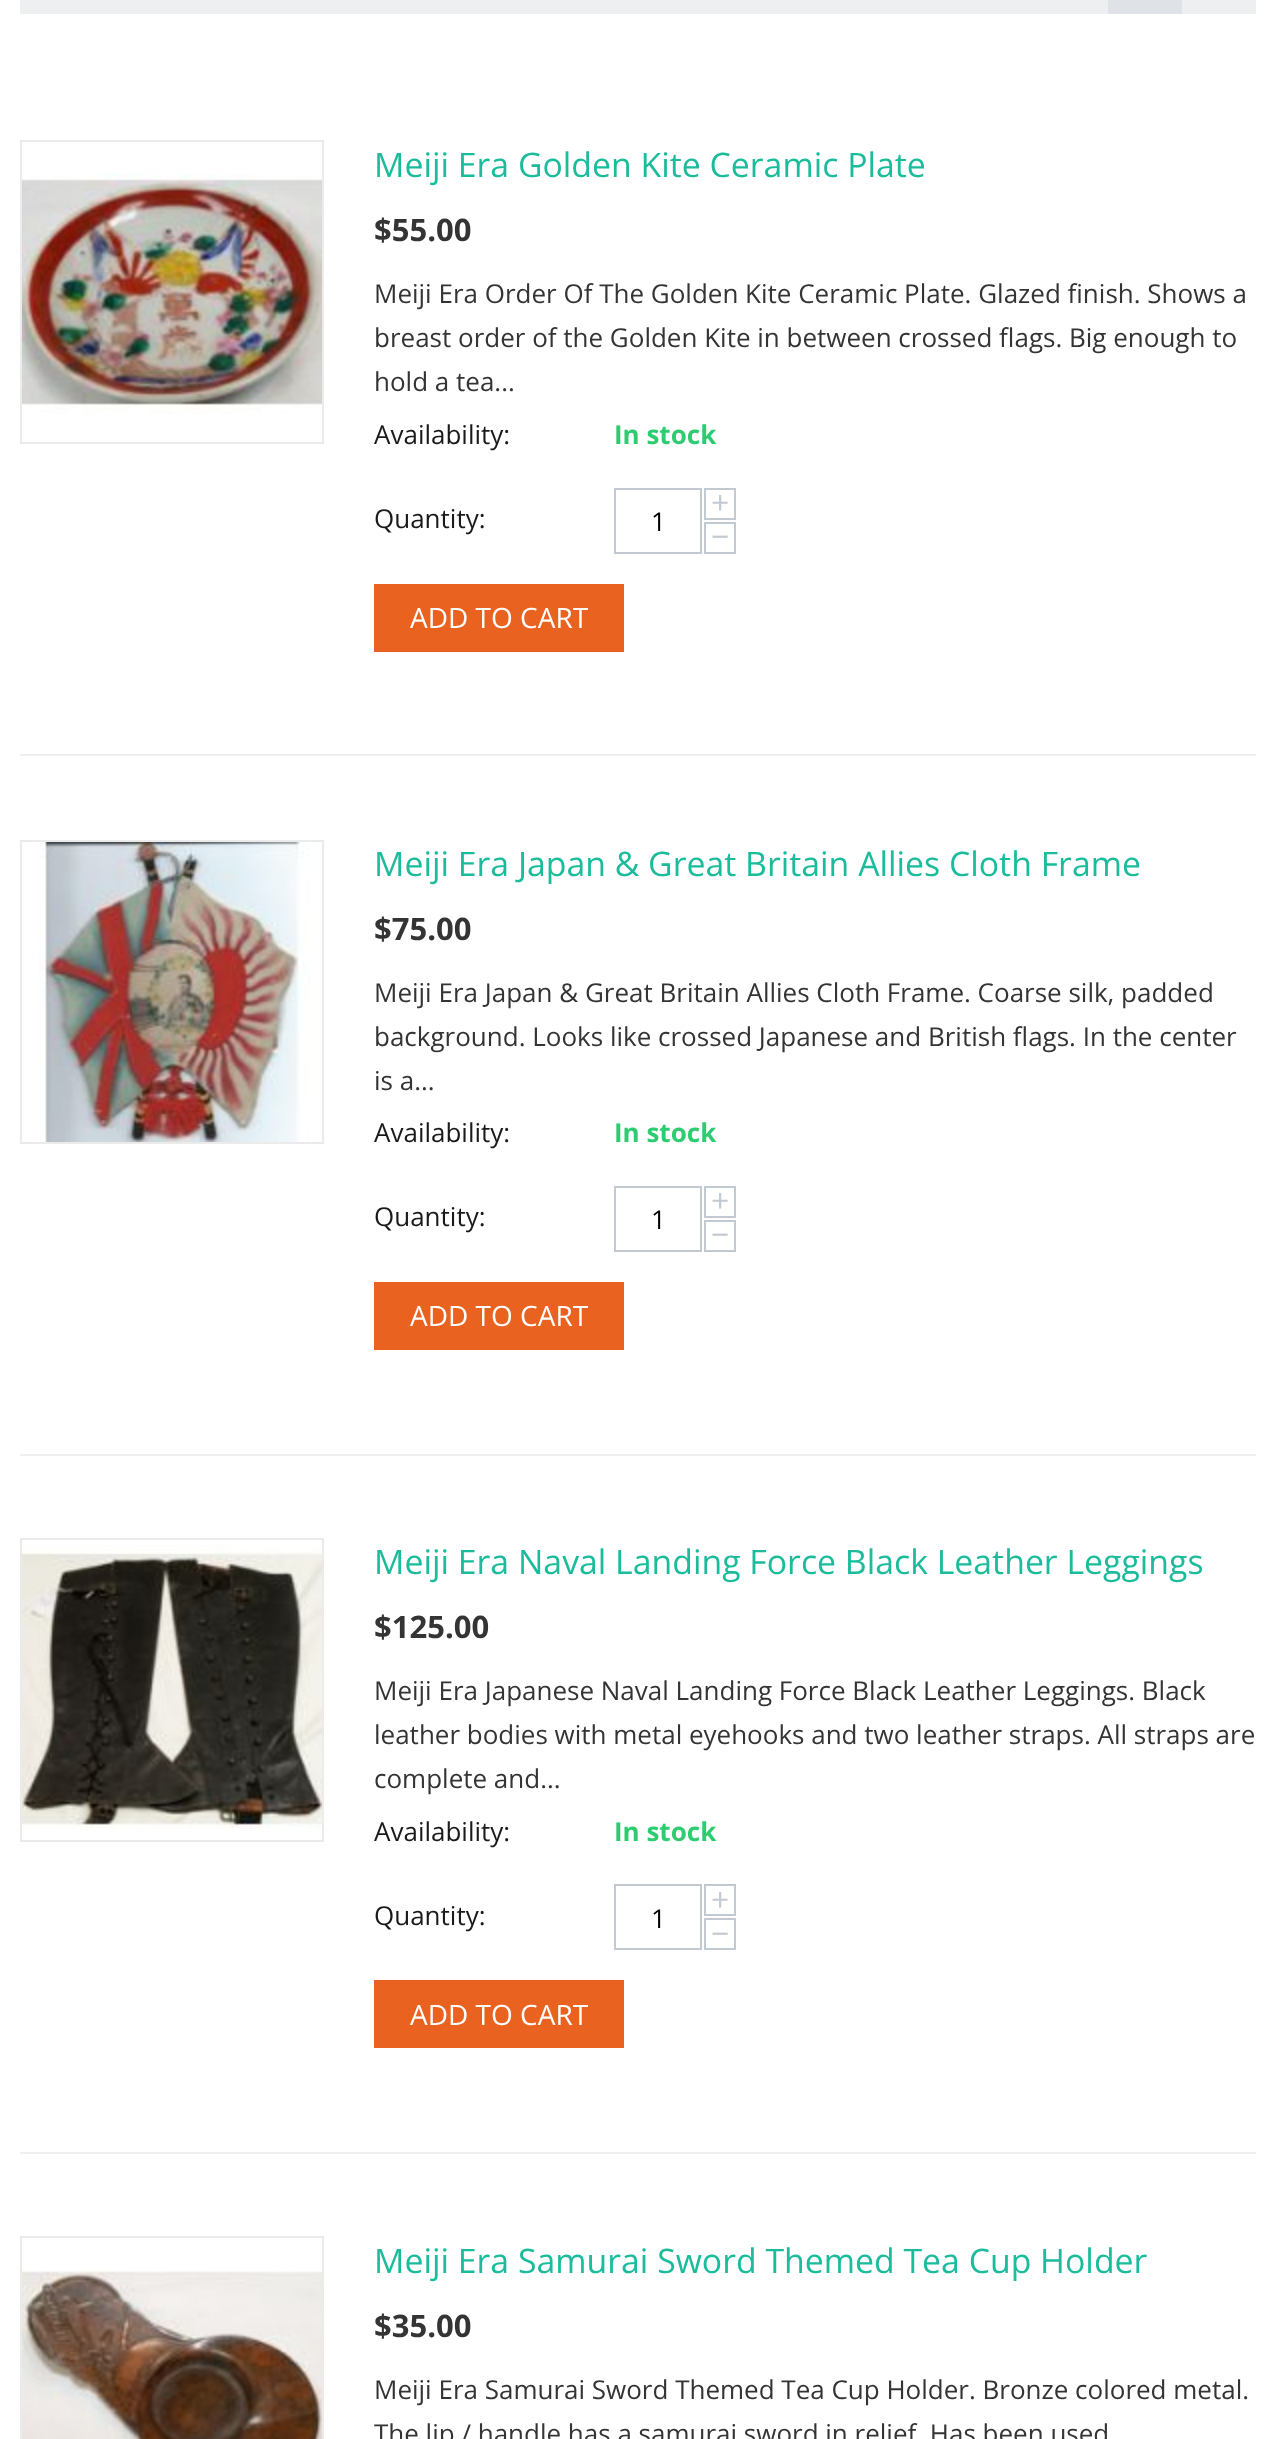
<?xml version="1.0" encoding="UTF-8"?>
<svg xmlns="http://www.w3.org/2000/svg" xmlns:xlink="http://www.w3.org/1999/xlink" width="1275" height="2439">
  <rect width="100%" height="100%" fill="#ffffff" />
  <rect x="20" width="1236" height="14" fill="#edeff1" />
  <rect x="1108" width="74" height="14" fill="#dfe2e6" />
  <rect x="21" y="141" width="302" height="302" fill="none" stroke="#ebebeb" stroke-width="2" />
  <image x="22" y="173" width="300" height="241" xlink:href="image1.png" />
  <rect x="705" y="489" width="30" height="30" fill="none" stroke="#c2c9d0" stroke-width="2" />
  <rect x="615" y="489" width="86" height="64" fill="none" stroke="#c2c9d0" stroke-width="2" />
  <rect x="705" y="523" width="30" height="30" fill="none" stroke="#c2c9d0" stroke-width="2" />
  <rect x="374" y="584" width="250" height="68" fill="#ea621f" />
  <rect x="20" y="754" width="1236" height="2" fill="#edeff1" />
  <rect x="21" y="841" width="302" height="302" fill="none" stroke="#ebebeb" stroke-width="2" />
  <image x="38" y="842" width="272" height="300" xlink:href="image2.png" />
  <rect x="705" y="1187" width="30" height="30" fill="none" stroke="#c2c9d0" stroke-width="2" />
  <rect x="615" y="1187" width="86" height="64" fill="none" stroke="#c2c9d0" stroke-width="2" />
  <rect x="705" y="1221" width="30" height="30" fill="none" stroke="#c2c9d0" stroke-width="2" />
  <rect x="374" y="1282" width="250" height="68" fill="#ea621f" />
  <rect x="20" y="1454" width="1236" height="2" fill="#edeff1" />
  <rect x="21" y="1539" width="302" height="302" fill="none" stroke="#ebebeb" stroke-width="2" />
  <image x="22" y="1545" width="300" height="284" xlink:href="image3.png" />
  <rect x="705" y="1885" width="30" height="30" fill="none" stroke="#c2c9d0" stroke-width="2" />
  <rect x="615" y="1885" width="86" height="64" fill="none" stroke="#c2c9d0" stroke-width="2" />
  <rect x="705" y="1919" width="30" height="30" fill="none" stroke="#c2c9d0" stroke-width="2" />
  <rect x="374" y="1980" width="250" height="68" fill="#ea621f" />
  <rect x="20" y="2152" width="1236" height="2" fill="#edeff1" />
  <rect x="21" y="2237" width="302" height="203" fill="none" stroke="#ebebeb" stroke-width="2" />
  <image x="22" y="2270" width="300" height="169" xlink:href="image4.png" />
  <text x="374" y="177" style="font-family: Open Sans; font-size: 33.8px; fill: #1abc9c">Meiji Era Golden Kite Ceramic Plate</text>
  <text x="374" y="241" style="font-family: Open Sans; font-size: 31px; font-weight: bold; fill: #343434">$55.00</text>
  <text x="374" y="303" style="font-family: Open Sans; font-size: 26px; fill: #343434">Meiji Era Order Of The Golden Kite Ceramic Plate. Glazed finish. Shows a</text>
  <text x="374" y="347" style="font-family: Open Sans; font-size: 26px; fill: #343434">breast order of the Golden Kite in between crossed flags. Big enough to</text>
  <text x="374" y="391" style="font-family: Open Sans; font-size: 26px; fill: #343434">hold a tea...</text>
  <text x="374" y="444" style="font-family: Open Sans; font-size: 26px; fill: #1a1a1a">Availability:</text>
  <text x="614" y="444" style="font-family: Open Sans; font-size: 26px; font-weight: bold; fill: #2ecc71">In stock</text>
  <text x="374" y="528" style="font-family: Open Sans; font-size: 26px; fill: #1a1a1a">Quantity:</text>
  <text x="711" y="514" style="font-family: Open Sans; font-size: 32px; fill: #c2c9d0">+</text>
  <text x="651" y="531" style="font-family: Open Sans; font-size: 26px; fill: #000000">1</text>
  <text x="711" y="548" style="font-family: Open Sans; font-size: 32px; fill: #c2c9d0">−</text>
  <text x="410" y="628" style="font-family: Open Sans; font-size: 28px; fill: #ffffff">ADD TO CART</text>
  <text x="374" y="876" style="font-family: Open Sans; font-size: 33.8px; fill: #1abc9c">Meiji Era Japan &amp; Great Britain Allies Cloth Frame</text>
  <text x="374" y="940" style="font-family: Open Sans; font-size: 31px; font-weight: bold; fill: #343434">$75.00</text>
  <text x="374" y="1002" style="font-family: Open Sans; font-size: 26px; fill: #343434">Meiji Era Japan &amp; Great Britain Allies Cloth Frame. Coarse silk, padded</text>
  <text x="374" y="1046" style="font-family: Open Sans; font-size: 26px; fill: #343434">background. Looks like crossed Japanese and British flags. In the center</text>
  <text x="374" y="1090" style="font-family: Open Sans; font-size: 26px; fill: #343434">is a...</text>
  <text x="374" y="1142" style="font-family: Open Sans; font-size: 26px; fill: #1a1a1a">Availability:</text>
  <text x="614" y="1142" style="font-family: Open Sans; font-size: 26px; font-weight: bold; fill: #2ecc71">In stock</text>
  <text x="374" y="1226" style="font-family: Open Sans; font-size: 26px; fill: #1a1a1a">Quantity:</text>
  <text x="711" y="1212" style="font-family: Open Sans; font-size: 32px; fill: #c2c9d0">+</text>
  <text x="651" y="1229" style="font-family: Open Sans; font-size: 26px; fill: #000000">1</text>
  <text x="711" y="1246" style="font-family: Open Sans; font-size: 32px; fill: #c2c9d0">−</text>
  <text x="410" y="1326" style="font-family: Open Sans; font-size: 28px; fill: #ffffff">ADD TO CART</text>
  <text x="374" y="1574" style="font-family: Open Sans; font-size: 33.8px; fill: #1abc9c">Meiji Era Naval Landing Force Black Leather Leggings</text>
  <text x="374" y="1638" style="font-family: Open Sans; font-size: 31px; font-weight: bold; fill: #343434">$125.00</text>
  <text x="374" y="1700" style="font-family: Open Sans; font-size: 26px; fill: #343434">Meiji Era Japanese Naval Landing Force Black Leather Leggings. Black</text>
  <text x="374" y="1744" style="font-family: Open Sans; font-size: 26px; fill: #343434">leather bodies with metal eyehooks and two leather straps. All straps are</text>
  <text x="374" y="1788" style="font-family: Open Sans; font-size: 26px; fill: #343434">complete and...</text>
  <text x="374" y="1841" style="font-family: Open Sans; font-size: 26px; fill: #1a1a1a">Availability:</text>
  <text x="614" y="1841" style="font-family: Open Sans; font-size: 26px; font-weight: bold; fill: #2ecc71">In stock</text>
  <text x="374" y="1925" style="font-family: Open Sans; font-size: 26px; fill: #1a1a1a">Quantity:</text>
  <text x="711" y="1911" style="font-family: Open Sans; font-size: 32px; fill: #c2c9d0">+</text>
  <text x="651" y="1928" style="font-family: Open Sans; font-size: 26px; fill: #000000">1</text>
  <text x="711" y="1945" style="font-family: Open Sans; font-size: 32px; fill: #c2c9d0">−</text>
  <text x="410" y="2025" style="font-family: Open Sans; font-size: 28px; fill: #ffffff">ADD TO CART</text>
  <text x="374" y="2273" style="font-family: Open Sans; font-size: 33.8px; fill: #1abc9c">Meiji Era Samurai Sword Themed Tea Cup Holder</text>
  <text x="374" y="2337" style="font-family: Open Sans; font-size: 31px; font-weight: bold; fill: #343434">$35.00</text>
  <text x="374" y="2399" style="font-family: Open Sans; font-size: 26px; fill: #343434">Meiji Era Samurai Sword Themed Tea Cup Holder. Bronze colored metal.</text>
  <text x="374" y="2443" style="font-family: Open Sans; font-size: 26px; fill: #343434">The lip / handle has a samurai sword in relief. Has been used</text>
</svg>
